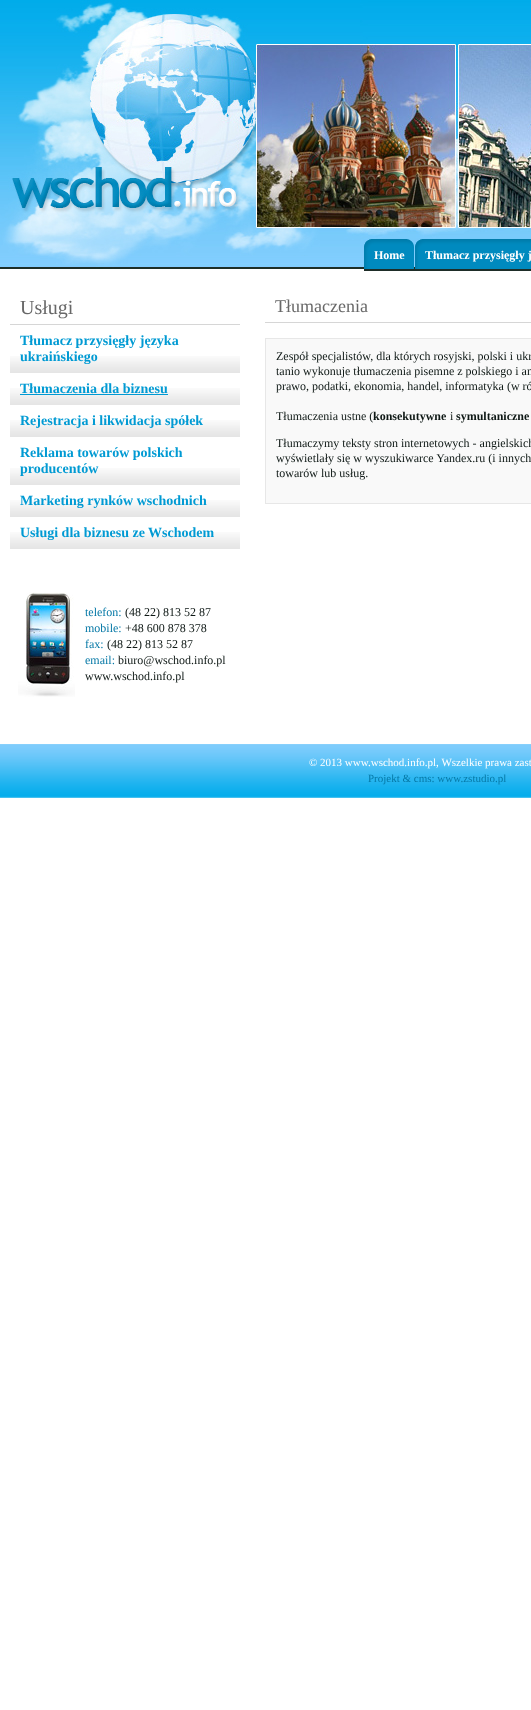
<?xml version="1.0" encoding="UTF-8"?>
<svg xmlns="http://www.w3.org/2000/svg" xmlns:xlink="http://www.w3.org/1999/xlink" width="531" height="1710">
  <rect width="100%" height="100%" fill="#ffffff" />
  <image x="0" y="0" width="531" height="269" xlink:href="image1.png" />
  <image x="256" y="44" width="275" height="184" xlink:href="image2.png" />
  <image x="364" y="239" width="10" height="32" xlink:href="image3.png" />
  <image x="374" y="239" width="31" height="32" xlink:href="image4.png" />
  <image x="405" y="239" width="10" height="32" xlink:href="image5.png" />
  <image x="415" y="239" width="10" height="32" xlink:href="image6.png" />
  <image x="425" y="239" width="106" height="32" xlink:href="image7.png" />
  <rect x="10" y="324" width="230" height="1" fill="#d6d6d6" />
  <image x="10" y="356" width="230" height="17" xlink:href="image8.png" />
  <image x="10" y="388" width="230" height="17" xlink:href="image8.png" />
  <rect x="20" y="394" width="148" height="1" fill="#009ad3" />
  <image x="10" y="420" width="230" height="17" xlink:href="image8.png" />
  <image x="10" y="468" width="230" height="17" xlink:href="image8.png" />
  <image x="10" y="500" width="230" height="17" xlink:href="image8.png" />
  <image x="10" y="532" width="230" height="17" xlink:href="image8.png" />
  <image x="18" y="592" width="57" height="105" xlink:href="image9.png" />
  <rect x="265" y="322" width="266" height="1" fill="#d6d6d6" />
  <rect x="265.5" y="338.5" width="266" height="165" fill="#f9f9f9" stroke="#e7e7e7" />
  <image x="0" y="744" width="531" height="54" xlink:href="image10.png" />
  <text x="374" y="259" style="font-family: Liberation Serif; font-size: 12px; font-weight: bold; fill: #ffffff">Home</text>
  <text x="425" y="259" style="font-family: Liberation Serif; font-size: 12px; font-weight: bold; fill: #ffffff">Tłumacz przysięgły j</text>
  <text x="20" y="314" style="font-family: Liberation Serif; font-size: 20px; fill: #686868">Usługi</text>
  <text x="20" y="345" style="font-family: Liberation Serif; font-size: 14px; font-weight: bold; fill: #009ad3">Tłumacz przysięgły języka</text>
  <text x="20" y="361" style="font-family: Liberation Serif; font-size: 14px; font-weight: bold; fill: #009ad3">ukraińskiego</text>
  <text x="20" y="393" style="font-family: Liberation Serif; font-size: 14px; font-weight: bold; fill: #009ad3">Tłumaczenia dla biznesu</text>
  <text x="20" y="425" style="font-family: Liberation Serif; font-size: 14px; font-weight: bold; fill: #009ad3">Rejestracja i likwidacja spółek</text>
  <text x="20" y="457" style="font-family: Liberation Serif; font-size: 14px; font-weight: bold; fill: #009ad3">Reklama towarów polskich</text>
  <text x="20" y="473" style="font-family: Liberation Serif; font-size: 14px; font-weight: bold; fill: #009ad3">producentów</text>
  <text x="20" y="505" style="font-family: Liberation Serif; font-size: 14px; font-weight: bold; fill: #009ad3">Marketing rynków wschodnich</text>
  <text x="20" y="537" style="font-family: Liberation Serif; font-size: 14px; font-weight: bold; fill: #009ad3">Usługi dla biznesu ze Wschodem</text>
  <text x="85" y="616" style="font-family: Liberation Serif; font-size: 12px; fill: #0578a6">telefon:</text>
  <text x="125" y="616" style="font-family: Liberation Serif; font-size: 12px; fill: #0e1815">(48 22) 813 52 87</text>
  <text x="85" y="632" style="font-family: Liberation Serif; font-size: 12px; fill: #0578a6">mobile:</text>
  <text x="125" y="632" style="font-family: Liberation Serif; font-size: 12px; fill: #0e1815">+48 600 878 378</text>
  <text x="85" y="648" style="font-family: Liberation Serif; font-size: 12px; fill: #0578a6">fax:</text>
  <text x="107" y="648" style="font-family: Liberation Serif; font-size: 12px; fill: #0e1815">(48 22) 813 52 87</text>
  <text x="85" y="664" style="font-family: Liberation Serif; font-size: 12px; fill: #0578a6">email:</text>
  <text x="118" y="664" style="font-family: Liberation Serif; font-size: 12px; fill: #0e1815">biuro@wschod.info.pl</text>
  <text x="85" y="680" style="font-family: Liberation Serif; font-size: 12px; fill: #0e1815">www.wschod.info.pl</text>
  <text x="275" y="312" style="font-family: Liberation Serif; font-size: 18px; fill: #686868">Tłumaczenia</text>
  <text x="276" y="360" style="font-family: Liberation Serif; font-size: 12px; fill: #0e1815">Zespół specjalistów, dla których rosyjski, polski i ukr</text>
  <text x="276" y="375" style="font-family: Liberation Serif; font-size: 12px; fill: #0e1815">tanio wykonuje tłumaczenia pisemne z polskiego i an</text>
  <text x="276" y="390" style="font-family: Liberation Serif; font-size: 12px; fill: #0e1815">prawo, podatki, ekonomia, handel, informatyka (w ró</text>
  <text x="276" y="420" style="font-family: Liberation Serif; font-size: 12px; fill: #0e1815">Tłumaczenia ustne (</text>
  <text x="373" y="420" style="font-family: Liberation Serif; font-size: 12px; font-weight: bold; fill: #0e1815">konsekutywne</text>
  <text x="450" y="420" style="font-family: Liberation Serif; font-size: 12px; fill: #0e1815">i</text>
  <text x="456" y="420" style="font-family: Liberation Serif; font-size: 12px; font-weight: bold; fill: #0e1815">symultaniczne</text>
  <text x="276" y="447" style="font-family: Liberation Serif; font-size: 12px; fill: #0e1815">Tłumaczymy teksty stron internetowych - angielskich</text>
  <text x="276" y="462" style="font-family: Liberation Serif; font-size: 12px; fill: #0e1815">wyświetlały się w wyszukiwarce Yandex.ru (i innych</text>
  <text x="276" y="477" style="font-family: Liberation Serif; font-size: 12px; fill: #0e1815">towarów lub usług.</text>
  <text x="309" y="766" style="font-family: Liberation Serif; font-size: 11px; fill: #ffffff">© 2013 www.wschod.info.pl, Wszelkie prawa zast</text>
  <text x="368" y="782" style="font-family: Liberation Serif; font-size: 11px; fill: #0578a6">Projekt &amp; cms: www.zstudio.pl</text>
</svg>
